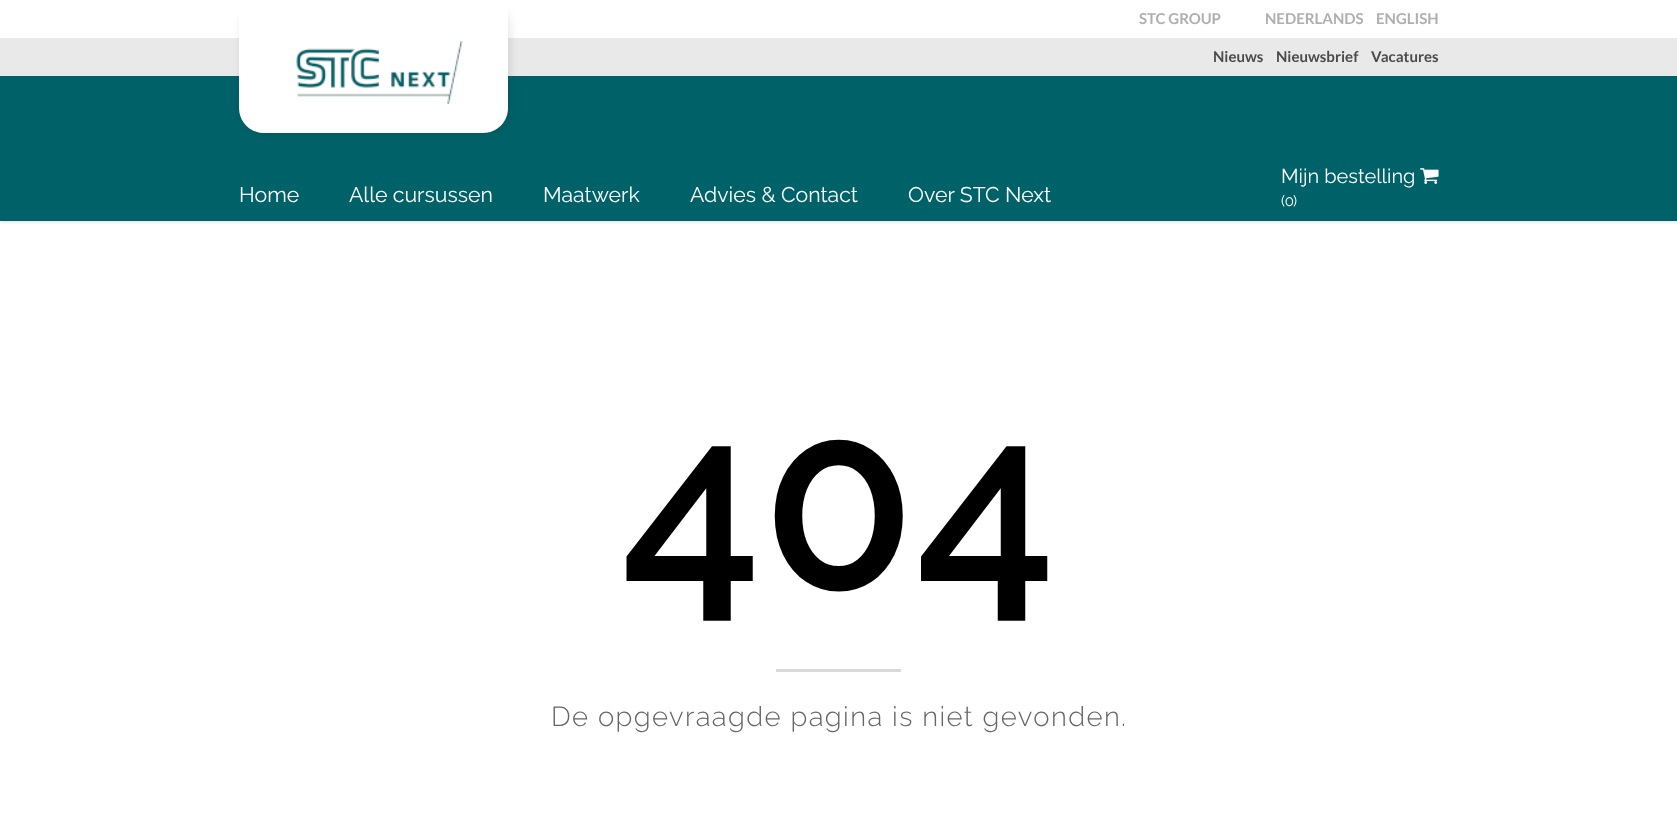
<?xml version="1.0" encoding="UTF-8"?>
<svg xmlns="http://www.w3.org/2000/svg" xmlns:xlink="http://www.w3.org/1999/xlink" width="1677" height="828">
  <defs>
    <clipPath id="clip1"><rect x="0" y="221" width="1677" height="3" /></clipPath>
  </defs>
  <rect width="100%" height="100%" fill="#ffffff" />
  <g clip-path="url(#clip1)">
    <rect width="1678" height="221" fill="#000000" fill-opacity="0.2" filter="blur(2px)" />
  </g>
  <rect y="38" width="1677" height="38" fill="#e9e9e9" />
  <rect y="76" width="1677" height="145" fill="#006269" />
  <rect x="241" y="3" width="269" height="132" rx="25" fill="#000000" fill-opacity="0.1" filter="blur(5px)" />
  <path d="M 239 0 h 269 v 108 c 0 14 -11 25 -25 25 h -219 c -14 0 -25 -11 -25 -25 z" fill="#ffffff" />
  <image x="296" y="41" width="167" height="63" xlink:href="image1.png" />
  <image x="1420" y="168" width="19" height="16" xlink:href="image2.png" />
  <rect x="776" y="669" width="125" height="3" fill="#d9d9d9" />
  <text x="1139" y="24" style="font-family: Lato; font-size: 15px; font-weight: bold; fill: #afafaf">STC GROUP</text>
  <text x="1265" y="24" style="font-family: Lato; font-size: 15px; font-weight: bold; fill: #afafaf">NEDERLANDS</text>
  <text x="1376" y="24" style="font-family: Lato; font-size: 15px; font-weight: bold; fill: #afafaf">ENGLISH</text>
  <text x="1213" y="62" style="font-family: Lato; font-size: 15px; font-weight: bold; fill: #4b4b4b">Nieuws</text>
  <text x="1276" y="62" style="font-family: Lato; font-size: 15px; font-weight: bold; fill: #4b4b4b">Nieuwsbrief</text>
  <text x="1371" y="62" style="font-family: Lato; font-size: 15px; font-weight: bold; fill: #4b4b4b">Vacatures</text>
  <text x="239" y="202" style="font-family: Raleway; font-size: 21.25px; fill: #ffffff">Home</text>
  <text x="349" y="202" style="font-family: Raleway; font-size: 21.25px; fill: #ffffff">Alle cursussen</text>
  <text x="543" y="202" style="font-family: Raleway; font-size: 21.25px; fill: #ffffff">Maatwerk</text>
  <text x="690" y="202" style="font-family: Raleway; font-size: 21.25px; fill: #ffffff">Advies &amp; Contact</text>
  <text x="908" y="202" style="font-family: Raleway; font-size: 21.25px; fill: #ffffff">Over STC Next</text>
  <text x="1281" y="183" style="font-family: Raleway; font-size: 20px; fill: #ffffff">Mijn bestelling</text>
  <text x="1281" y="206" style="font-family: Raleway; font-size: 15px; fill: #ffffff">(0</text>
  <text x="1293" y="206" style="font-family: Raleway; font-size: 15px; fill: #ffffff">)</text>
  <text x="621" y="589" style="font-family: Raleway; font-size: 250px; font-weight: 600; fill: #000000">404</text>
  <text x="551" y="726" style="font-family: Raleway; font-size: 27.5px; font-weight: 300; letter-spacing: 1.4px; fill: #666666">De opgevraagde pagina is niet gevonden.</text>
</svg>
